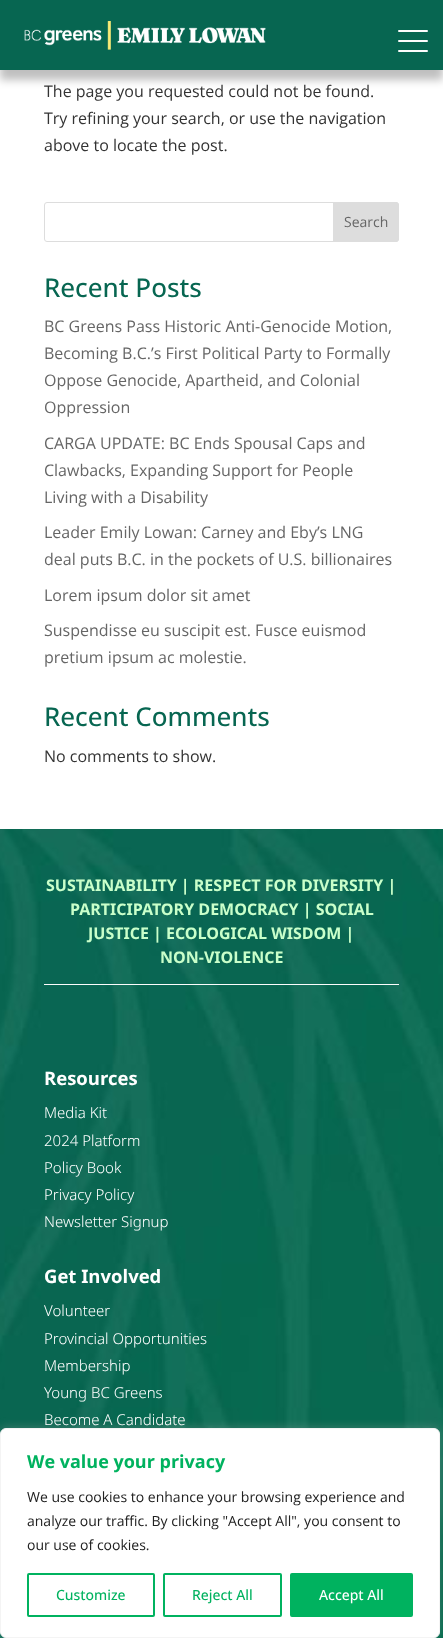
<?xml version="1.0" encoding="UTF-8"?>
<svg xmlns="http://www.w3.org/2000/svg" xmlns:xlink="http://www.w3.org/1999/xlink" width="443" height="1638">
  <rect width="100%" height="100%" fill="#ffffff" />
  <rect y="10" width="443" height="70" fill="#000000" fill-opacity="0.25" filter="blur(4px)" />
  <rect width="443" height="70" fill="#076651" />
  <image x="24" y="21" width="242" height="29" xlink:href="image1.png" />
  <rect x="398" y="50" width="30" height="2" rx="1" fill="#fcfcfc" />
  <rect x="398" y="30" width="30" height="2" rx="1" fill="#fcfcfc" />
  <rect x="398" y="40" width="30" height="2" rx="1" fill="#fcfcfc" />
  <rect x="44.5" y="202.5" width="354" height="39" rx="2.5" fill="none" stroke="#dddddd" />
  <path d="M 333.5 202.5 h 62.5 c 1.5 0 2.5 1 2.5 2.5 v 34 c 0 1.5 -1 2.5 -2.5 2.5 h -62.5 z" fill="#dddddd" stroke="#dddddd" />
  <image x="0" y="829" width="443" height="809" xlink:href="image2.png" />
  <rect x="44" y="984" width="355" height="1" fill="#fcfcfc" />
  <rect y="1427" width="440" height="210" rx="6" fill="#acabab" fill-opacity="0.3" filter="blur(5px)" />
  <rect x="0.5" y="1428.5" width="439" height="209" rx="5.5" fill="#ffffff" stroke="#f4f4f4" />
  <rect x="28" y="1574" width="126" height="42" rx="1" fill="none" stroke="#00b25f" stroke-width="2" />
  <rect x="164" y="1574" width="117" height="42" rx="1" fill="none" stroke="#00b25f" stroke-width="2" />
  <rect x="291" y="1574" width="121" height="42" rx="1" fill="#00b25f" stroke="#00b25f" stroke-width="2" />
  <text x="44" y="97" style="font-family: Open Sans; font-size: 16px; fill: #333333">The page you requested could not be found.</text>
  <text x="44" y="124" style="font-family: Open Sans; font-size: 16px; fill: #333333">Try refining your search, or use the navigation</text>
  <text x="44" y="151" style="font-family: Open Sans; font-size: 16px; fill: #333333">above to locate the post.</text>
  <text x="344" y="227" style="font-family: Open Sans; font-size: 14px; fill: #666666">Search</text>
  <text x="44" y="297" style="font-family: Open Sans; font-size: 26px; font-weight: 500; fill: #076651">Recent Posts</text>
  <text x="44" y="332" style="font-family: Open Sans; font-size: 16px; fill: #666666">BC Greens Pass Historic Anti-Genocide Motion,</text>
  <text x="44" y="359" style="font-family: Open Sans; font-size: 16px; fill: #666666">Becoming B.C.’s First Political Party to Formally</text>
  <text x="44" y="386" style="font-family: Open Sans; font-size: 16px; fill: #666666">Oppose Genocide, Apartheid, and Colonial</text>
  <text x="44" y="413" style="font-family: Open Sans; font-size: 16px; fill: #666666">Oppression</text>
  <text x="44" y="449" style="font-family: Open Sans; font-size: 16px; fill: #666666">CARGA UPDATE: BC Ends Spousal Caps and</text>
  <text x="44" y="476" style="font-family: Open Sans; font-size: 16px; fill: #666666">Clawbacks, Expanding Support for People</text>
  <text x="44" y="503" style="font-family: Open Sans; font-size: 16px; fill: #666666">Living with a Disability</text>
  <text x="44" y="538" style="font-family: Open Sans; font-size: 16px; fill: #666666">Leader Emily Lowan: Carney and Eby’s LNG</text>
  <text x="44" y="565" style="font-family: Open Sans; font-size: 16px; fill: #666666">deal puts B.C. in the pockets of U.S. billionaires</text>
  <text x="44" y="601" style="font-family: Open Sans; font-size: 16px; fill: #666666">Lorem ipsum dolor sit amet</text>
  <text x="44" y="636" style="font-family: Open Sans; font-size: 16px; fill: #666666">Suspendisse eu suscipit est. Fusce euismod</text>
  <text x="44" y="663" style="font-family: Open Sans; font-size: 16px; fill: #666666">pretium ipsum ac molestie.</text>
  <text x="44" y="726" style="font-family: Open Sans; font-size: 26px; font-weight: 500; fill: #076651">Recent Comments</text>
  <text x="44" y="762" style="font-family: Open Sans; font-size: 16px; fill: #333333">No comments to show.</text>
  <text x="46" y="891" style="font-family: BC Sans; font-size: 16px; font-weight: bold; fill: #c9ffca">SUSTAINABILITY | RESPECT FOR DIVERSITY |</text>
  <text x="70" y="915" style="font-family: BC Sans; font-size: 16px; font-weight: bold; fill: #c9ffca">PARTICIPATORY DEMOCRACY | SOCIAL</text>
  <text x="88" y="939" style="font-family: BC Sans; font-size: 16px; font-weight: bold; fill: #c9ffca">JUSTICE | ECOLOGICAL WISDOM |</text>
  <text x="160" y="963" style="font-family: BC Sans; font-size: 16px; font-weight: bold; fill: #c9ffca">NON‑VIOLENCE</text>
  <text x="44" y="1085" style="font-family: BC Sans; font-size: 18.5px; font-weight: bold; fill: #ffffff">Resources</text>
  <text x="44" y="1118" style="font-family: BC Sans; font-size: 15px; font-weight: 300; fill: #ffffff">Media Kit</text>
  <text x="44" y="1146" style="font-family: BC Sans; font-size: 15px; font-weight: 300; fill: #ffffff">2024 Platform</text>
  <text x="44" y="1173" style="font-family: BC Sans; font-size: 15px; font-weight: 300; fill: #ffffff">Policy Book</text>
  <text x="44" y="1200" style="font-family: BC Sans; font-size: 15px; font-weight: 300; fill: #ffffff">Privacy Policy</text>
  <text x="44" y="1227" style="font-family: BC Sans; font-size: 15px; font-weight: 300; fill: #ffffff">Newsletter Signup</text>
  <text x="44" y="1283" style="font-family: BC Sans; font-size: 18.5px; font-weight: bold; fill: #ffffff">Get Involved</text>
  <text x="44" y="1316" style="font-family: BC Sans; font-size: 15px; font-weight: 300; fill: #ffffff">Volunteer</text>
  <text x="44" y="1344" style="font-family: BC Sans; font-size: 15px; font-weight: 300; fill: #ffffff">Provincial Opportunities</text>
  <text x="44" y="1371" style="font-family: BC Sans; font-size: 15px; font-weight: 300; fill: #ffffff">Membership</text>
  <text x="44" y="1398" style="font-family: BC Sans; font-size: 15px; font-weight: 300; fill: #ffffff">Young BC Greens</text>
  <text x="44" y="1425" style="font-family: BC Sans; font-size: 15px; font-weight: 300; fill: #ffffff">Become A Candidate</text>
  <text x="27" y="1468" style="font-family: Open Sans; font-size: 18px; font-weight: bold; fill: #00b25f">We value your privacy</text>
  <text x="27" y="1502" style="font-family: Open Sans; font-size: 14px; fill: #212121">We use cookies to enhance your browsing experience and</text>
  <text x="27" y="1526" style="font-family: Open Sans; font-size: 14px; fill: #212121">analyze our traffic. By clicking "Accept All", you consent to</text>
  <text x="27" y="1550" style="font-family: Open Sans; font-size: 14px; fill: #212121">our use of cookies.</text>
  <text x="56" y="1600" style="font-family: Open Sans; font-size: 14px; font-weight: 500; fill: #00b25f">Customize</text>
  <text x="192" y="1600" style="font-family: Open Sans; font-size: 14px; font-weight: 500; fill: #00b25f">Reject All</text>
  <text x="319" y="1600" style="font-family: Open Sans; font-size: 14px; font-weight: 500; fill: #ffffff">Accept All</text>
</svg>
